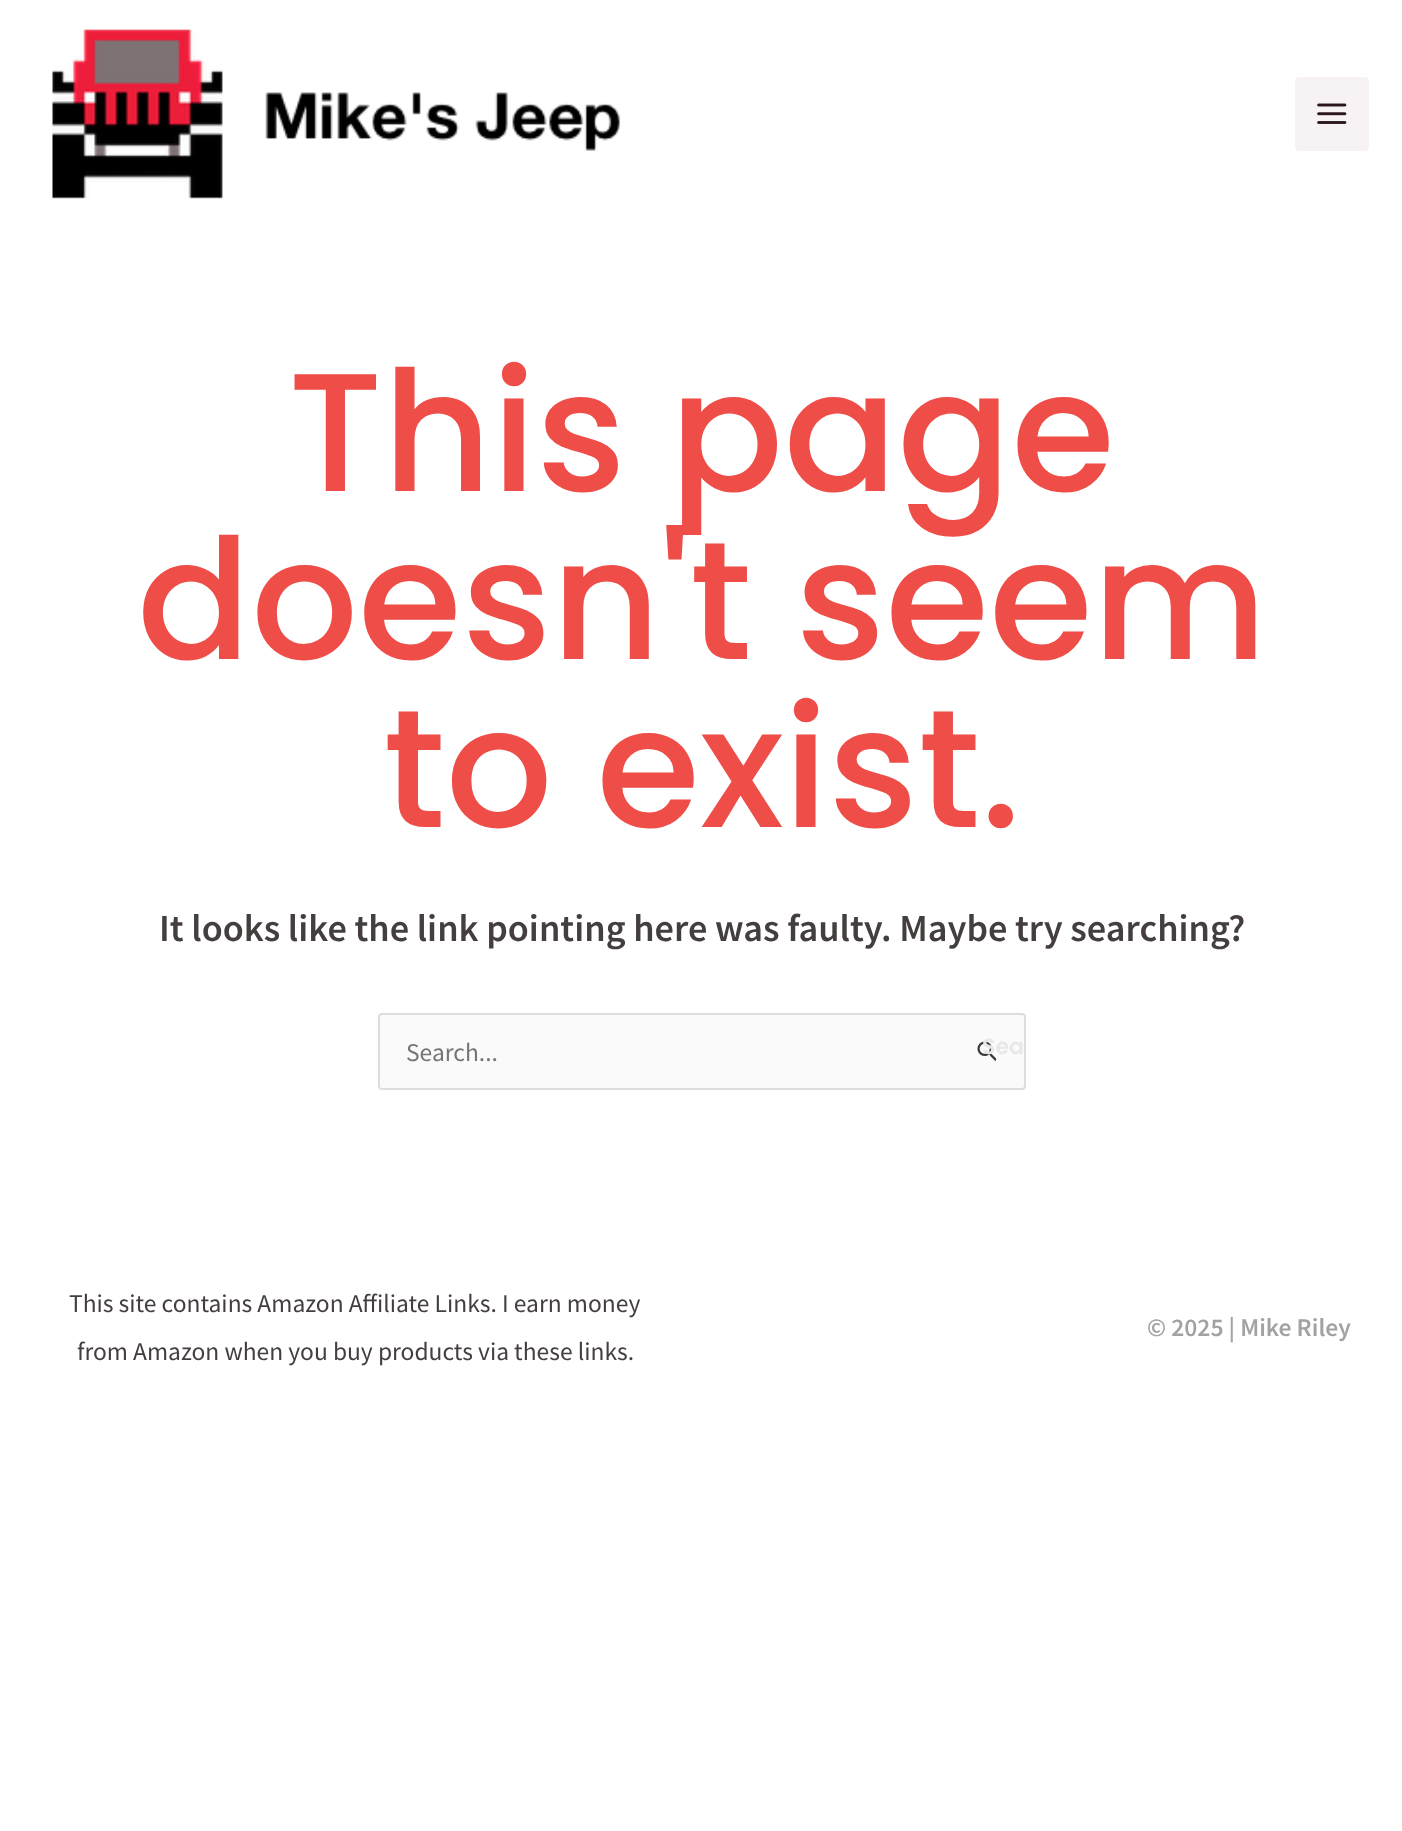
<?xml version="1.0" encoding="UTF-8"?>
<svg xmlns="http://www.w3.org/2000/svg" xmlns:xlink="http://www.w3.org/1999/xlink" width="1402" height="1831">
  <rect width="100%" height="100%" fill="#ffffff" />
  <image x="52" y="29" width="568" height="170" xlink:href="image1.png" />
  <rect x="1295" y="77" width="74" height="74" rx="4" fill="#f7f3f5" />
  <image x="1317" y="103" width="30" height="21" xlink:href="image2.png" />
  <rect x="379" y="1014" width="646" height="75" rx="3" fill="#fafafa" stroke="#dddddd" stroke-width="2" />
  <image x="977" y="1041" width="19" height="20" xlink:href="image3.png" />
  <text x="288" y="491" style="font-family: Poppins; font-size: 168px; font-weight: 500; fill: #ef4d48">This page</text>
  <text x="137" y="659" style="font-family: Poppins; font-size: 168px; font-weight: 500; fill: #ef4d48">doesn't seem</text>
  <text x="383" y="827" style="font-family: Poppins; font-size: 168px; font-weight: 500; fill: #ef4d48">to exist.</text>
  <text x="159" y="941" style="font-family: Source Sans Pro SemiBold; font-size: 38.3px; font-weight: 600; fill: #453e3e">It looks like the link pointing here was faulty. Maybe try searching?</text>
  <text x="406" y="1061" style="font-family: Source Sans Pro; font-size: 25.5px; fill: #757575">Search...</text>
  <text x="982" y="1054" style="font-family: Poppins; font-size: 22px; font-weight: 600; fill: #e8e8e8">Sea</text>
  <text x="69" y="1312" style="font-family: Source Sans Pro; font-size: 25.5px; fill: #453e3e">This site contains Amazon Affiliate Links. I earn money</text>
  <text x="77" y="1360" style="font-family: Source Sans Pro; font-size: 25.5px; fill: #453e3e">from Amazon when you buy products via these links.</text>
  <text x="1147" y="1336" style="font-family: Source Sans Pro SemiBold; font-size: 25.5px; font-weight: 600; fill: #a2a2a2">© 2025 | Mike Riley</text>
</svg>
